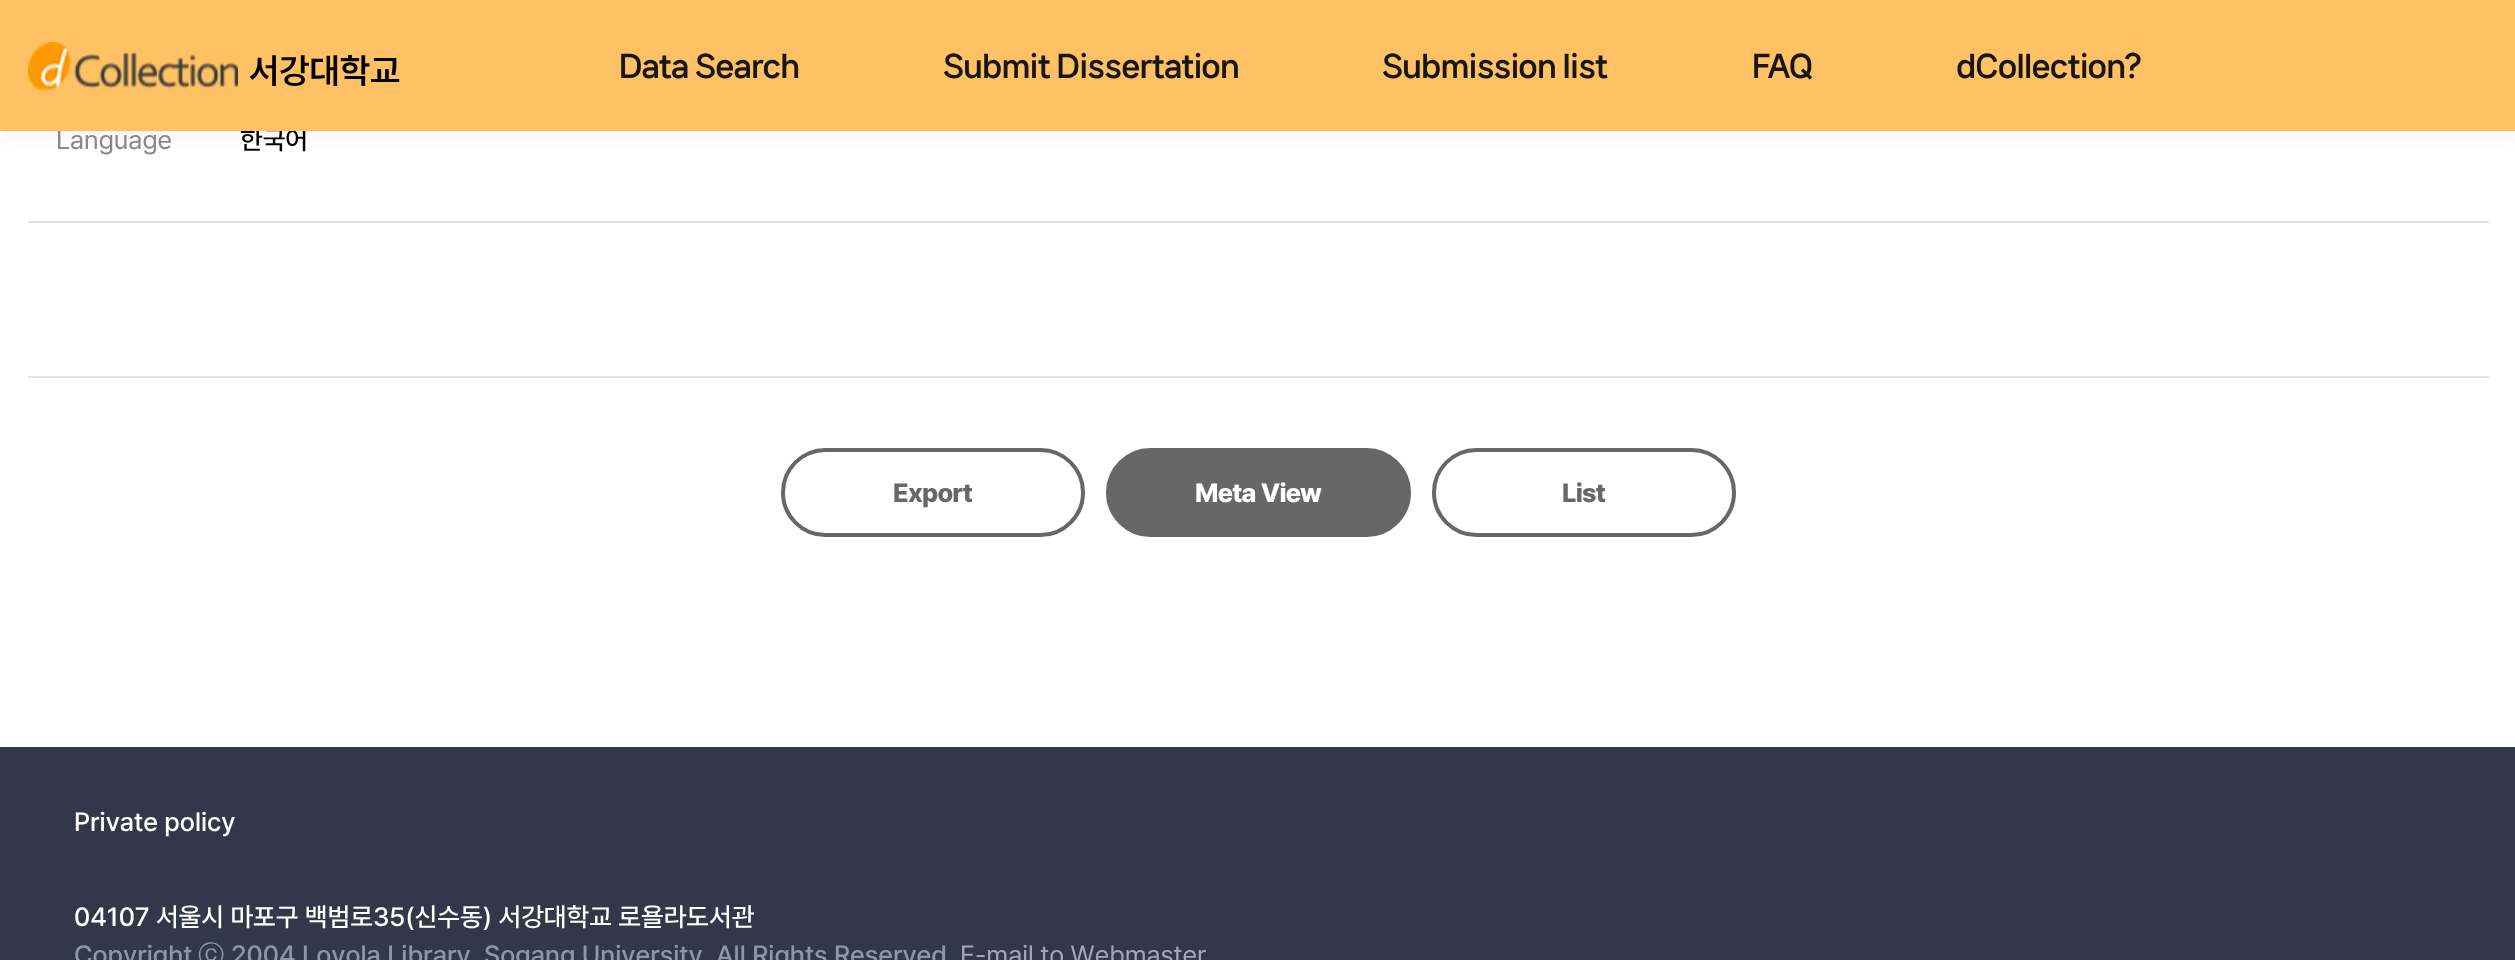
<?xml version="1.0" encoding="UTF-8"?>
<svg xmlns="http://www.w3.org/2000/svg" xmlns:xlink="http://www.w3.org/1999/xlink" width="2515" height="960">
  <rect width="100%" height="100%" fill="#ffffff" />
  <rect y="7" width="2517" height="131" fill="#000000" fill-opacity="0.04" filter="blur(7px)" />
  <rect x="28" y="221" width="2461" height="2" fill="#e3e3e3" />
  <rect x="28" y="376" width="2461" height="2" fill="#e3e3e3" />
  <rect x="783" y="450" width="300" height="85" rx="42.5" fill="none" stroke="#676767" stroke-width="4" />
  <rect x="1108" y="450" width="301" height="85" rx="42.5" fill="#676767" stroke="#676767" stroke-width="4" />
  <rect x="1434" y="450" width="300" height="85" rx="42.5" fill="none" stroke="#676767" stroke-width="4" />
  <rect y="747" width="2515" height="213" fill="#32384a" />
  <text x="56" y="149" style="font-family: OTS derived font; font-size: 26.25px; fill: #888888">Language</text>
  <text x="240" y="149" style="font-family: OTS derived font; font-size: 26.25px; font-weight: 500; fill: #000000">한국어</text>
  <rect width="2515" height="131" fill="#ffc163" />
  <text x="1956" y="75" style="font-family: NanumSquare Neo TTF; font-size: 29.75px; font-weight: 800; letter-spacing: -0.75px; fill: #161616">dCollection?</text>
  <text x="1752" y="75" style="font-family: NanumSquare Neo TTF; font-size: 29.75px; font-weight: 800; letter-spacing: -0.75px; fill: #161616">FAQ</text>
  <text x="1382" y="75" style="font-family: NanumSquare Neo TTF; font-size: 29.75px; font-weight: 800; letter-spacing: -0.75px; fill: #161616">Submission list</text>
  <text x="943" y="75" style="font-family: NanumSquare Neo TTF; font-size: 29.75px; font-weight: 800; letter-spacing: -0.75px; fill: #161616">Submit Dissertation</text>
  <text x="619" y="75" style="font-family: NanumSquare Neo TTF; font-size: 29.75px; font-weight: 800; letter-spacing: -0.75px; fill: #161616">Data Search</text>
  <text x="249" y="83" style="font-family: OTS derived font; font-size: 35px; font-weight: 600; fill: #000000">서강대학교</text>
  <image x="28" y="42" width="210" height="48" xlink:href="image1.png" />
  <text x="893" y="502" style="font-family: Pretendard; font-size: 26.25px; font-weight: 800; letter-spacing: -0.75px; fill: #676767">Export</text>
  <text x="1195" y="502" style="font-family: Pretendard; font-size: 26.25px; font-weight: 800; letter-spacing: -0.75px; fill: #ffffff">Meta View</text>
  <text x="1562" y="502" style="font-family: Pretendard; font-size: 26.25px; font-weight: 800; letter-spacing: -0.75px; fill: #676767">List</text>
  <text x="74" y="831" style="font-family: OTS derived font; font-size: 26.25px; font-weight: 500; fill: #ffffff">Private policy</text>
  <text x="74" y="926" style="font-family: OTS derived font; font-size: 26.25px; font-weight: 500; fill: #ffffff">04107 서울시 마포구 백범로35(신수동) 서강대학교 로욜라도서관</text>
  <text x="74" y="964" style="font-family: OTS derived font; font-size: 26.25px; font-weight: 500; fill: #8e96ae">Copyright</text>
  <text x="198" y="964" style="font-family: WenQuanYi Zen Hei; font-size: 26.25px; font-weight: 500; fill: #8e96ae">ⓒ</text>
  <text x="231" y="964" style="font-family: OTS derived font; font-size: 26.25px; font-weight: 500; fill: #8e96ae">2004 Loyola Library, Sogang University, All Rights Reserved</text>
  <text x="960" y="964" style="font-family: OTS derived font; font-size: 26.25px; fill: #a2a7b3">E-mail to Webmaster</text>
</svg>
